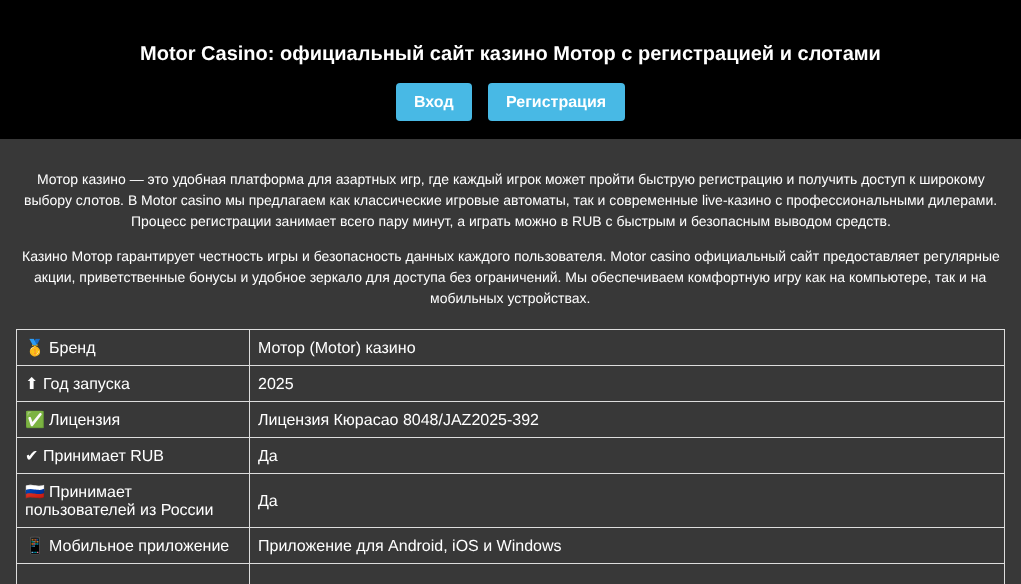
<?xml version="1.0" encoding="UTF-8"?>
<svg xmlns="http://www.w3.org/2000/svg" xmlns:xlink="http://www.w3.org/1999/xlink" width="1021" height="584">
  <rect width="100%" height="100%" fill="#383838" />
  <rect width="1021" height="139" fill="#000000" />
  <rect x="396" y="83" width="76" height="38" rx="4" fill="#48b9e5" />
  <rect x="488" y="83" width="137" height="38" rx="4" fill="#48b9e5" />
  <rect x="249" y="329" width="756" height="1" fill="#dddddd" />
  <rect x="249" y="365" width="756" height="1" fill="#dddddd" />
  <rect x="249" y="401" width="756" height="1" fill="#dddddd" />
  <rect x="249" y="437" width="756" height="1" fill="#dddddd" />
  <rect x="249" y="473" width="756" height="1" fill="#dddddd" />
  <rect x="249" y="527" width="756" height="1" fill="#dddddd" />
  <rect x="249" y="563" width="756" height="1" fill="#dddddd" />
  <rect x="249" y="563" width="1" height="21" fill="#dddddd" />
  <rect x="16" y="563" width="234" height="1" fill="#dddddd" />
  <rect x="249" y="527" width="1" height="37" fill="#dddddd" />
  <rect x="16" y="527" width="234" height="1" fill="#dddddd" />
  <rect x="249" y="473" width="1" height="55" fill="#dddddd" />
  <rect x="16" y="473" width="234" height="1" fill="#dddddd" />
  <rect x="249" y="437" width="1" height="37" fill="#dddddd" />
  <rect x="16" y="437" width="234" height="1" fill="#dddddd" />
  <rect x="249" y="401" width="1" height="37" fill="#dddddd" />
  <rect x="16" y="401" width="234" height="1" fill="#dddddd" />
  <rect x="249" y="365" width="1" height="37" fill="#dddddd" />
  <rect x="16" y="365" width="234" height="1" fill="#dddddd" />
  <rect x="249" y="329" width="1" height="37" fill="#dddddd" />
  <rect x="16" y="329" width="234" height="1" fill="#dddddd" />
  <rect x="16" y="563" width="1" height="21" fill="#dddddd" />
  <rect x="16" y="527" width="1" height="37" fill="#dddddd" />
  <rect x="16" y="473" width="1" height="55" fill="#dddddd" />
  <rect x="16" y="437" width="1" height="37" fill="#dddddd" />
  <rect x="16" y="401" width="1" height="37" fill="#dddddd" />
  <rect x="16" y="365" width="1" height="37" fill="#dddddd" />
  <rect x="16" y="329" width="1" height="37" fill="#dddddd" />
  <rect x="1004" y="563" width="1" height="21" fill="#dddddd" />
  <rect x="1004" y="527" width="1" height="37" fill="#dddddd" />
  <rect x="1004" y="473" width="1" height="55" fill="#dddddd" />
  <rect x="1004" y="437" width="1" height="37" fill="#dddddd" />
  <rect x="1004" y="401" width="1" height="37" fill="#dddddd" />
  <rect x="1004" y="365" width="1" height="37" fill="#dddddd" />
  <rect x="1004" y="329" width="1" height="37" fill="#dddddd" />
  <text x="140" y="60" style="font-family: Liberation Sans; font-size: 20px; font-weight: bold; fill: #ffffff">Motor Casino: официальный сайт казино Мотор с регистрацией и слотами</text>
  <text x="414" y="107" style="font-family: Liberation Sans; font-size: 16px; font-weight: bold; fill: #ffffff">Вход</text>
  <text x="506" y="107" style="font-family: Liberation Sans; font-size: 16px; font-weight: bold; fill: #ffffff">Регистрация</text>
  <text x="37" y="184" style="font-family: Liberation Sans; font-size: 14px; fill: #ffffff">Мотор казино — это удобная платформа для азартных игр, где каждый игрок может пройти быструю регистрацию и получить доступ к широкому</text>
  <text x="24" y="205" style="font-family: Liberation Sans; font-size: 14px; fill: #ffffff">выбору слотов. В Motor casino мы предлагаем как классические игровые автоматы, так и современные live-казино с профессиональными дилерами.</text>
  <text x="131" y="226" style="font-family: Liberation Sans; font-size: 14px; fill: #ffffff">Процесс регистрации занимает всего пару минут, а играть можно в RUB с быстрым и безопасным выводом средств.</text>
  <text x="22" y="261" style="font-family: Liberation Sans; font-size: 14px; fill: #ffffff">Казино Мотор гарантирует честность игры и безопасность данных каждого пользователя. Motor casino официальный сайт предоставляет регулярные</text>
  <text x="34" y="282" style="font-family: Liberation Sans; font-size: 14px; fill: #ffffff">акции, приветственные бонусы и удобное зеркало для доступа без ограничений. Мы обеспечиваем комфортную игру как на компьютере, так и на</text>
  <text x="430" y="303" style="font-family: Liberation Sans; font-size: 14px; fill: #ffffff">мобильных устройствах.</text>
  <text x="25" y="353" style="font-family: Noto Color Emoji; font-size: 16px; fill: #ffffff">🥇</text>
  <text x="49" y="353" style="font-family: Liberation Sans; font-size: 16px; fill: #ffffff">Бренд</text>
  <text x="258" y="353" style="font-family: Liberation Sans; font-size: 16px; fill: #ffffff">Мотор (Motor) казино</text>
  <text x="25" y="389" style="font-family: DejaVu Sans; font-size: 16px; fill: #ffffff">⬆</text>
  <text x="43" y="389" style="font-family: Liberation Sans; font-size: 16px; fill: #ffffff">Год запуска</text>
  <text x="258" y="389" style="font-family: Liberation Sans; font-size: 16px; fill: #ffffff">2025</text>
  <text x="25" y="425" style="font-family: Noto Color Emoji; font-size: 16px; fill: #ffffff">✅</text>
  <text x="49" y="425" style="font-family: Liberation Sans; font-size: 16px; fill: #ffffff">Лицензия</text>
  <text x="258" y="425" style="font-family: Liberation Sans; font-size: 16px; fill: #ffffff">Лицензия Кюрасао 8048/JAZ2025-392</text>
  <text x="25" y="461" style="font-family: DejaVu Sans; font-size: 16px; fill: #ffffff">✔</text>
  <text x="43" y="461" style="font-family: Liberation Sans; font-size: 16px; fill: #ffffff">Принимает RUB</text>
  <text x="258" y="461" style="font-family: Liberation Sans; font-size: 16px; fill: #ffffff">Да</text>
  <text x="25" y="497" style="font-family: Noto Color Emoji; font-size: 16px; fill: #ffffff">🇷🇺</text>
  <text x="49" y="497" style="font-family: Liberation Sans; font-size: 16px; fill: #ffffff">Принимает</text>
  <text x="25" y="515" style="font-family: Liberation Sans; font-size: 16px; fill: #ffffff">пользователей из России</text>
  <text x="258" y="506" style="font-family: Liberation Sans; font-size: 16px; fill: #ffffff">Да</text>
  <text x="25" y="551" style="font-family: Noto Color Emoji; font-size: 16px; fill: #ffffff">📱</text>
  <text x="49" y="551" style="font-family: Liberation Sans; font-size: 16px; fill: #ffffff">Мобильное приложение</text>
  <text x="258" y="551" style="font-family: Liberation Sans; font-size: 16px; fill: #ffffff">Приложение для Android, iOS и Windows</text>
</svg>
